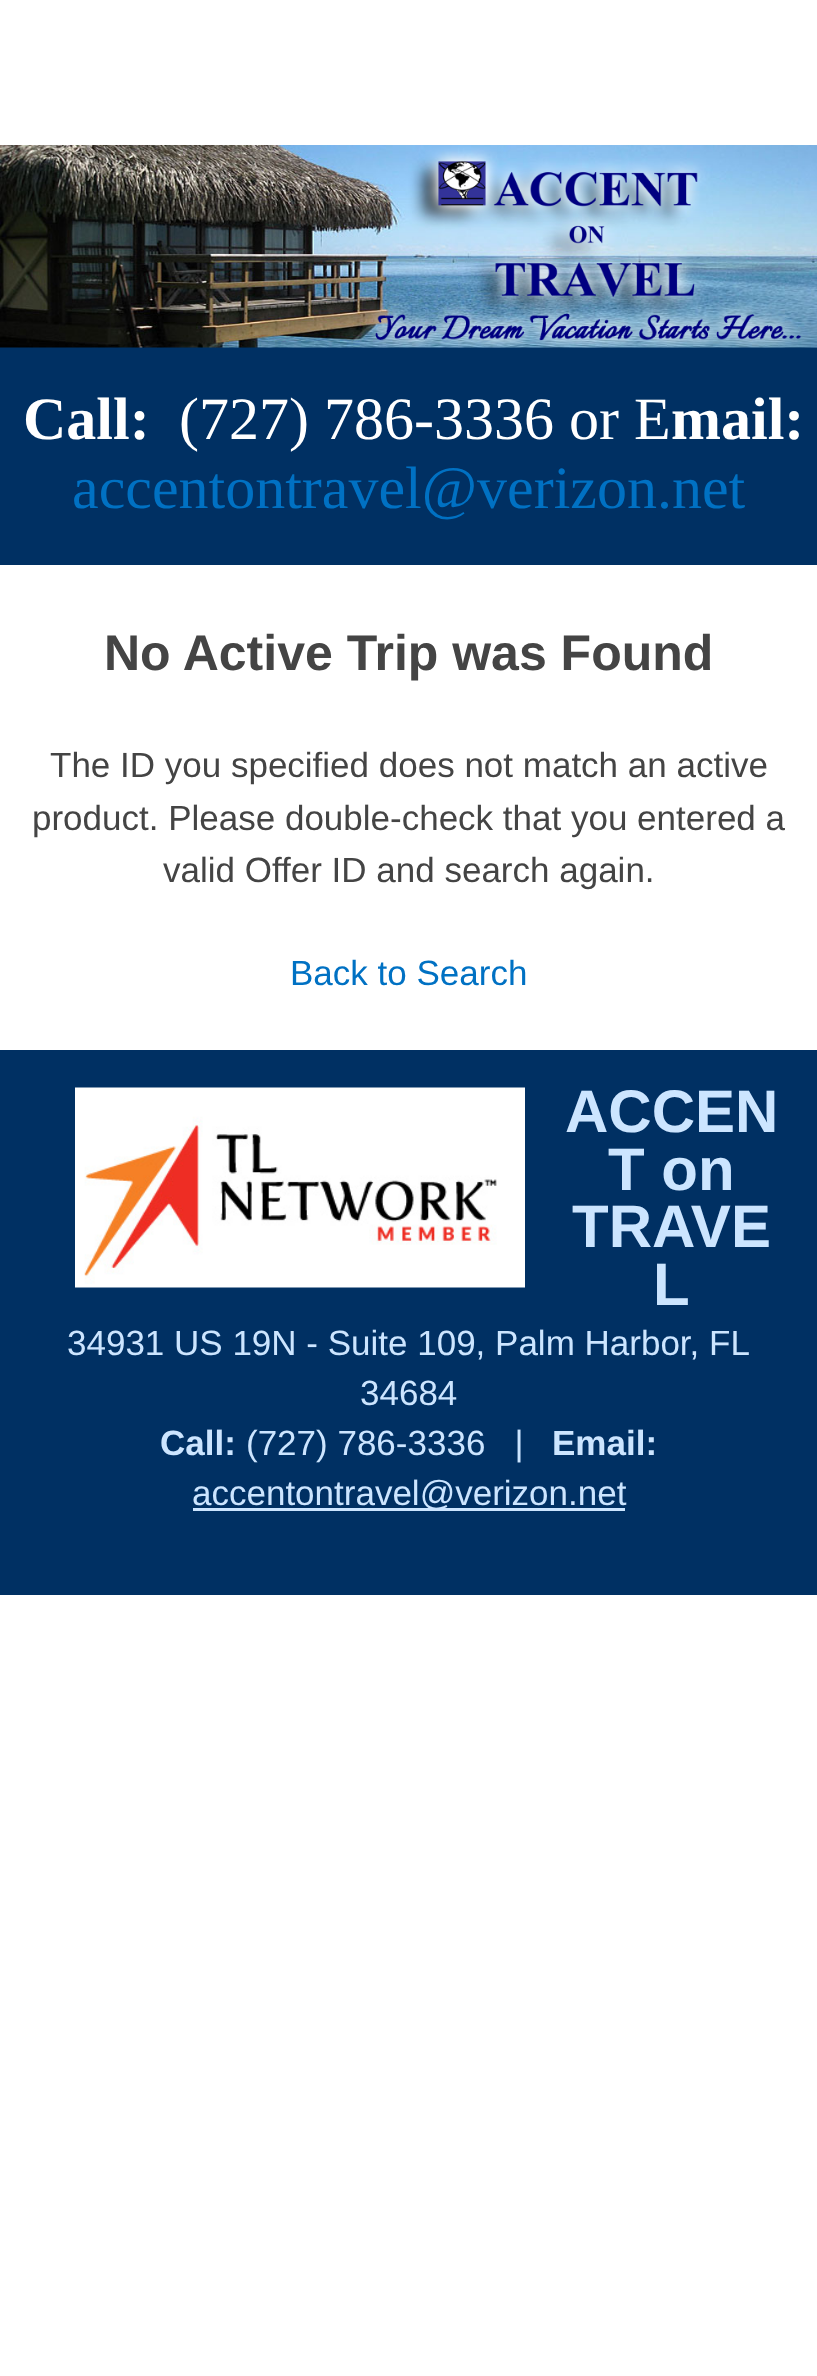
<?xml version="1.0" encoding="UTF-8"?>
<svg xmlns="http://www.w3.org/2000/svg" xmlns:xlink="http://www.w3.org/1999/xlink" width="817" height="2376">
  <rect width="100%" height="100%" fill="#ffffff" />
  <rect y="347" width="817" height="218" fill="#003063" />
  <image x="0" y="145" width="817" height="203" xlink:href="image1.png" />
  <rect y="1050" width="817" height="545" fill="#003063" />
  <image x="75" y="1087" width="450" height="201" xlink:href="image2.png" />
  <rect x="193" y="1508" width="432" height="3" fill="#cce5ff" />
  <text x="23" y="439" style="font-family: Liberation Serif; font-size: 60px; font-weight: bold; fill: #ffffff">Call:</text>
  <text x="179" y="439" style="font-family: Liberation Serif; font-size: 60px; fill: #ffffff">(727) 786-3336 or E</text>
  <text x="671" y="439" style="font-family: Liberation Serif; font-size: 60px; font-weight: bold; fill: #ffffff">mail:</text>
  <text x="72" y="508" style="font-family: Liberation Serif; font-size: 60px; fill: #0071c3">accentontravel@verizon.net</text>
  <text x="104" y="670" style="font-family: Liberation Sans; font-size: 50px; font-weight: bold; fill: #444444">No Active Trip was Found</text>
  <text x="50" y="777" style="font-family: Liberation Sans; font-size: 35px; fill: #444444">The ID you specified does not match an active</text>
  <text x="32" y="830" style="font-family: Liberation Sans; font-size: 35px; fill: #444444">product. Please double-check that you entered a</text>
  <text x="163" y="882" style="font-family: Liberation Sans; font-size: 35px; fill: #444444">valid Offer ID and search again.</text>
  <text x="290" y="985" style="font-family: Liberation Sans; font-size: 35px; fill: #0071c3">Back to Search</text>
  <text x="565" y="1132" style="font-family: Liberation Sans; font-size: 60px; font-weight: bold; fill: #cce5ff">ACCEN</text>
  <text x="608" y="1190" style="font-family: Liberation Sans; font-size: 60px; font-weight: bold; fill: #cce5ff">T on</text>
  <text x="572" y="1247" style="font-family: Liberation Sans; font-size: 60px; font-weight: bold; fill: #cce5ff">TRAVE</text>
  <text x="653" y="1305" style="font-family: Liberation Sans; font-size: 60px; font-weight: bold; fill: #cce5ff">L</text>
  <text x="67" y="1355" style="font-family: Liberation Sans; font-size: 35px; fill: #cce5ff">34931 US 19N - Suite 109, Palm Harbor, FL</text>
  <text x="360" y="1405" style="font-family: Liberation Sans; font-size: 35px; fill: #cce5ff">34684</text>
  <text x="160" y="1455" style="font-family: Liberation Sans; font-size: 35px; font-weight: bold; fill: #cce5ff">Call:</text>
  <text x="246" y="1455" style="font-family: Liberation Sans; font-size: 35px; fill: #cce5ff" xml:space="preserve">(727) 786-3336   |</text>
  <text x="552" y="1455" style="font-family: Liberation Sans; font-size: 35px; font-weight: bold; fill: #cce5ff">Email:</text>
  <text x="192" y="1505" style="font-family: Liberation Sans; font-size: 35px; fill: #cce5ff">accentontravel@verizon.net</text>
</svg>
